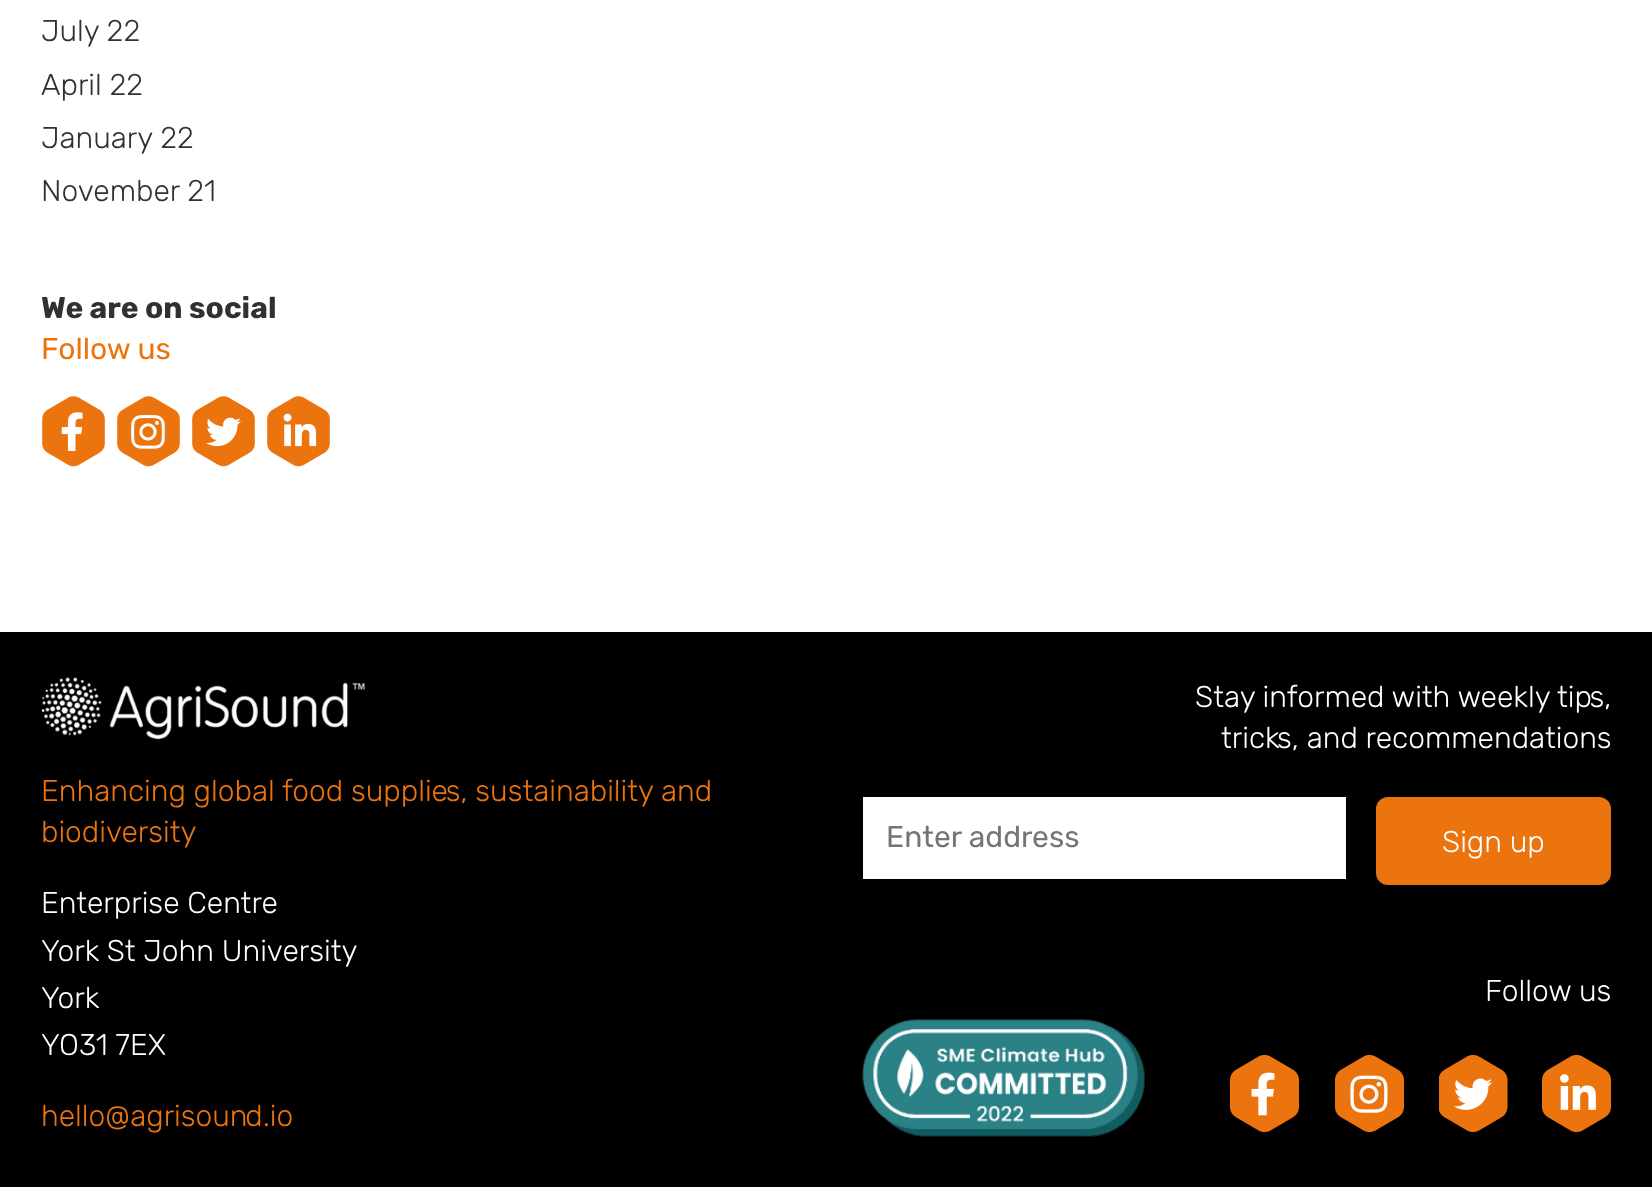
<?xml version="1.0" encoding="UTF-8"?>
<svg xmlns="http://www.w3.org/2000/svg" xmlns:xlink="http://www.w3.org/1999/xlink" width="1652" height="1187">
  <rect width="100%" height="100%" fill="#ffffff" />
  <image x="42" y="396" width="63" height="71" xlink:href="image1.png" />
  <image x="117" y="396" width="63" height="71" xlink:href="image2.png" />
  <image x="192" y="396" width="63" height="71" xlink:href="image3.png" />
  <image x="267" y="396" width="63" height="71" xlink:href="image4.png" />
  <rect y="632" width="1652" height="555" fill="#000000" />
  <image x="42" y="677" width="323" height="63" xlink:href="image5.png" />
  <rect x="863" y="797" width="483" height="82" fill="#ffffff" />
  <rect x="1377" y="798" width="233" height="86" rx="11" fill="#ec740e" stroke="#ec740e" stroke-width="2" />
  <image x="1230" y="1054" width="69" height="79" xlink:href="image6.png" />
  <image x="1335" y="1054" width="69" height="79" xlink:href="image7.png" />
  <image x="1439" y="1054" width="69" height="79" xlink:href="image8.png" />
  <image x="1542" y="1054" width="69" height="79" xlink:href="image9.png" />
  <image x="862" y="1019" width="283" height="118" xlink:href="image10.png" />
  <text x="41" y="41" style="font-family: Rubik; font-size: 30px; font-weight: 300; fill: #30322f">July 22</text>
  <text x="41" y="95" style="font-family: Rubik; font-size: 30px; font-weight: 300; fill: #30322f">April 22</text>
  <text x="41" y="148" style="font-family: Rubik; font-size: 30px; font-weight: 300; fill: #30322f">January 22</text>
  <text x="41" y="201" style="font-family: Rubik; font-size: 30px; font-weight: 300; fill: #30322f">November 21</text>
  <text x="41" y="318" style="font-family: Rubik; font-size: 30px; font-weight: bold; fill: #30322f">We are on social</text>
  <text x="41" y="359" style="font-family: Rubik; font-size: 30px; fill: #ec740e">Follow us</text>
  <text x="41" y="801" style="font-family: Rubik; font-size: 30px; font-weight: 300; fill: #ec740e">Enhancing global food supplies, sustainability and</text>
  <text x="41" y="842" style="font-family: Rubik; font-size: 30px; font-weight: 300; fill: #ec740e">biodiversity</text>
  <text x="41" y="913" style="font-family: Rubik; font-size: 30px; font-weight: 300; fill: #ffffff">Enterprise Centre</text>
  <text x="41" y="961" style="font-family: Rubik; font-size: 30px; font-weight: 300; fill: #ffffff">York St John University</text>
  <text x="41" y="1008" style="font-family: Rubik; font-size: 30px; font-weight: 300; fill: #ffffff">York</text>
  <text x="41" y="1055" style="font-family: Rubik; font-size: 30px; font-weight: 300; fill: #ffffff">YO31 7EX</text>
  <text x="41" y="1126" style="font-family: Rubik; font-size: 30px; font-weight: 300; fill: #ec740e">hello@agrisound.io</text>
  <text x="1195" y="707" style="font-family: Rubik; font-size: 30px; font-weight: 300; fill: #ffffff">Stay informed with weekly tips,</text>
  <text x="1221" y="748" style="font-family: Rubik; font-size: 30px; font-weight: 300; fill: #ffffff">tricks, and recommendations</text>
  <text x="886" y="847" style="font-family: Rubik; font-size: 30px; fill: #757575">Enter address</text>
  <text x="1442" y="852" style="font-family: Rubik; font-size: 30px; font-weight: 300; fill: #ffffff">Sign up</text>
  <text x="1485" y="1001" style="font-family: Rubik; font-size: 30px; font-weight: 300; fill: #ffffff">Follow us</text>
</svg>
